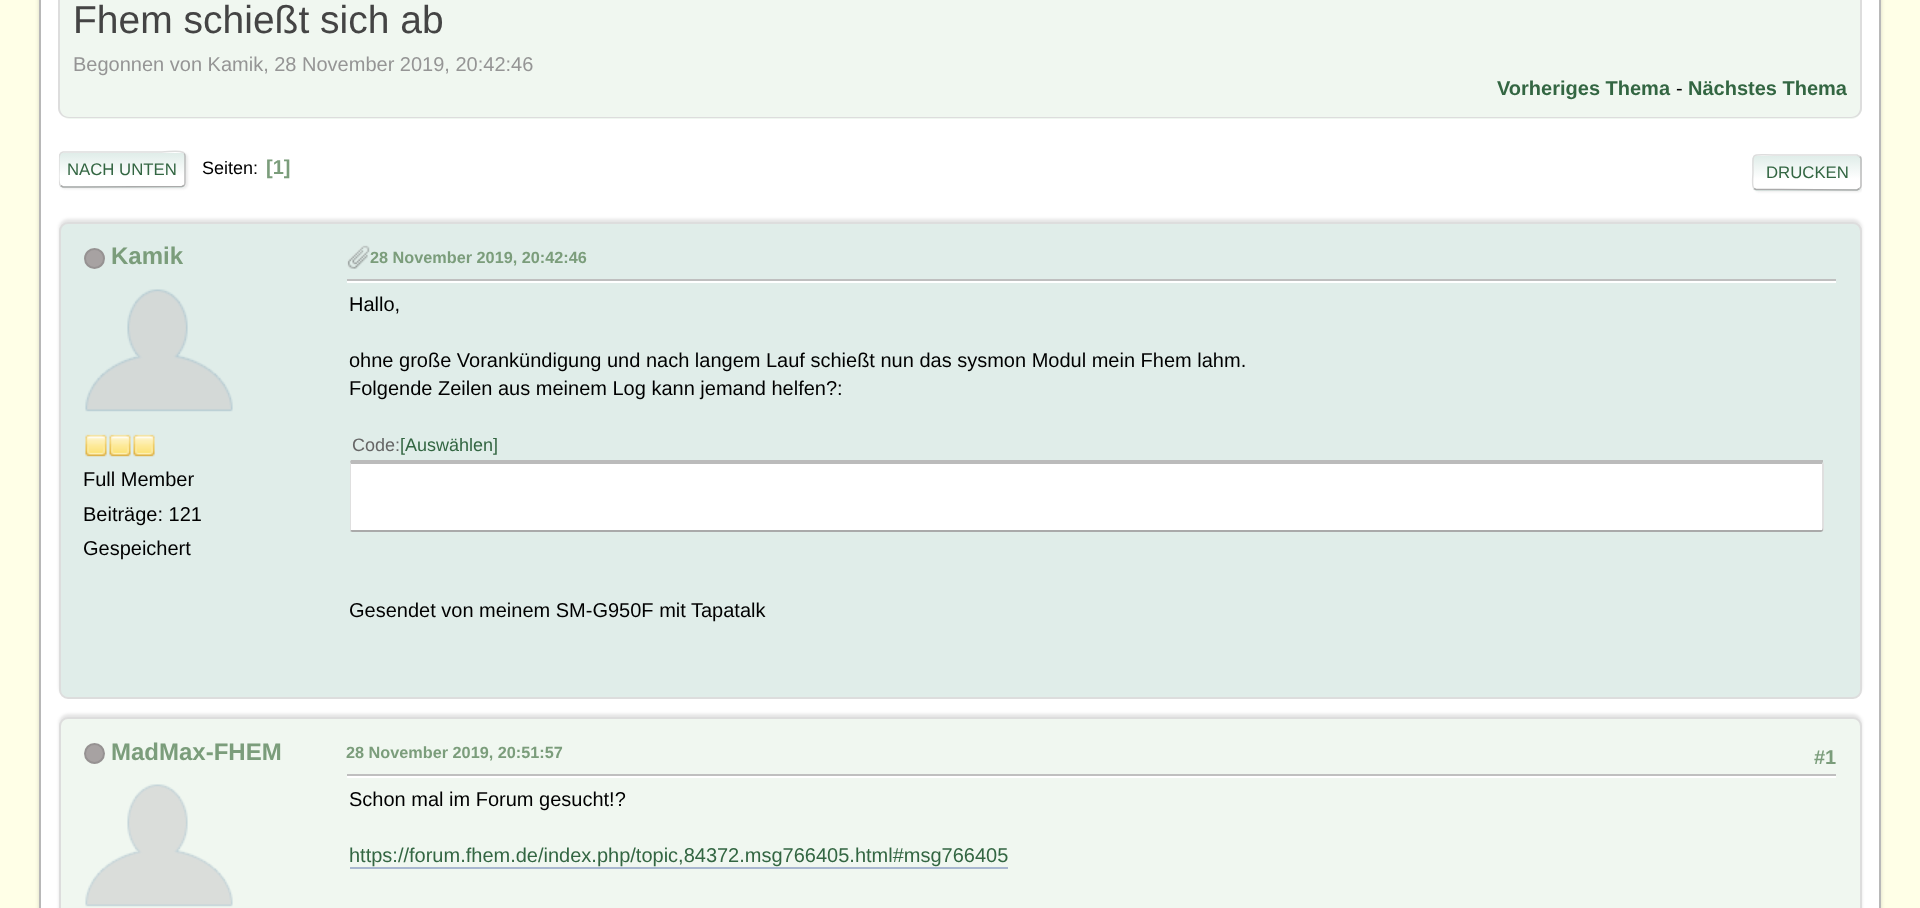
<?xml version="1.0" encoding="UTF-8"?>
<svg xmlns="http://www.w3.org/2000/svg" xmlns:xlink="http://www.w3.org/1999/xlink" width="1920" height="908">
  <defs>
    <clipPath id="clip1"><rect x="59" y="152" width="127" height="36" rx="5" /></clipPath>
    <linearGradient id="g1" gradientUnits="userSpaceOnUse" x1="122" y1="153" x2="122" y2="186"><stop offset="0" stop-color="#e0ede9" /><stop offset="0.7" stop-color="#ffffff" /></linearGradient>
    <linearGradient id="g2" gradientUnits="userSpaceOnUse" x1="122" y1="186" x2="122" y2="219"><stop offset="0" stop-color="#e0ede9" /><stop offset="0.7" stop-color="#ffffff" /></linearGradient>
    <clipPath id="clip2"><rect x="59" y="141" width="1803" height="63" /></clipPath>
    <clipPath id="clip3"><rect x="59" y="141" width="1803" height="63" /></clipPath>
    <clipPath id="clip4"><rect x="1752" y="155" width="110" height="36" rx="5" /></clipPath>
    <linearGradient id="g3" gradientUnits="userSpaceOnUse" x1="1807" y1="156" x2="1807" y2="189"><stop offset="0" stop-color="#e0ede9" /><stop offset="0.7" stop-color="#ffffff" /></linearGradient>
    <linearGradient id="g4" gradientUnits="userSpaceOnUse" x1="1807" y1="189" x2="1807" y2="222"><stop offset="0" stop-color="#e0ede9" /><stop offset="0.7" stop-color="#ffffff" /></linearGradient>
  </defs>
  <rect width="100%" height="100%" fill="#ffffe7" />
  <rect x="39" y="-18" width="1842" height="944" rx="12" fill="#000000" fill-opacity="0.14" filter="blur(2px)" />
  <rect x="40" y="-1" width="1840" height="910" fill="#ffffff" stroke="#b8b8b8" stroke-width="2" />
  <path d="M 59 -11 h 1803 v 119 c 0 6 -5 11 -11 11 h -1781 c -6 0 -11 -5 -11 -11 z" fill="#f0f7f0" />
  <path d="M 58 -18 h 1804 v 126 c 0 6 -5 10 -11 10 h -1782 c -6 0 -11 -4 -11 -10 z m 2 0 h 1800 v 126 c 0 5 -4 9 -9 9 h -1782 c -5 0 -9 -4 -9 -9 z" fill="#dddddd" fill-rule="evenodd" />
  <rect x="60" y="153" width="128" height="36" rx="5" fill="#dddddd" fill-opacity="0.57" filter="blur(1px)" />
  <rect x="59" y="152" width="127" height="36" rx="5" fill="#ffffff" />
  <g clip-path="url(#clip1)">
    <rect x="59" y="153" width="127" height="33" fill="url(#g1)" />
    <rect x="59" y="186" width="127" height="2" fill="url(#g2)" />
  </g>
  <path d="M 184 153.5 c 1 0.5 1 1.5 1 2.5 v 27 c 0 1 0 2 -1 2.5" fill="none" stroke="#bbbbbb" stroke-width="1.5" />
  <path d="M 184 185.5 l -2 1 l -99 0.5 h -20 l -2.5 -1.5" fill="none" stroke="#aaaaaa" stroke-width="1.5" />
  <g clip-path="url(#clip2)">
    <path d="M 60.5 185.5 c -2.5 -2 -1.5 -13 -1.5 -16 v -9 c 0 -3 -0.5 -8 4 -8.5 h 99 c 7 0 15 -2.5 21.5 0.5 l 0.5 1" fill="none" stroke="#dddddd" stroke-width="1.5" />
  </g>
  <g clip-path="url(#clip3)">
    <rect x="1754" y="156" width="109" height="36" rx="5" fill="#dddddd" fill-opacity="0.57" filter="blur(1px)" />
  </g>
  <rect x="1752" y="155" width="110" height="36" rx="5" fill="#ffffff" />
  <g clip-path="url(#clip4)">
    <rect x="1752" y="156" width="110" height="33" fill="url(#g3)" />
    <rect x="1752" y="189" width="110" height="2" fill="url(#g4)" />
  </g>
  <path d="M 1859.5 156.5 c 1 0.5 1.5 1.5 1.5 2.5 v 27 c 0 1 -0.5 2 -1.5 2.5" fill="none" stroke="#bbbbbb" stroke-width="1.5" />
  <path d="M 1859.5 188.5 l -2.5 1.5 l -101 -0.5 l -2 -1" fill="none" stroke="#aaaaaa" stroke-width="1.5" />
  <path d="M 1754 188.5 c -2.5 -2 -1 -13 -1 -16 c 0 -21 -3 -17.5 20 -17.5 h 84 l 2.5 1.5" fill="none" stroke="#dddddd" stroke-width="1.5" />
  <rect x="59" y="219" width="1803" height="477" rx="9" fill="#000000" fill-opacity="0.1" filter="blur(1.5px)" />
  <rect x="60" y="223" width="1801" height="475" rx="8" fill="#e0ede9" stroke="#dddddd" stroke-width="2" />
  <circle cx="94.5" cy="258.5" r="9.5" fill="#a7a2a2" stroke="#969292" stroke-width="2" />
  <image x="85" y="289" width="148" height="123" xlink:href="image1.png" />
  <image x="85" y="434" width="22" height="23" xlink:href="image2.png" />
  <image x="109" y="434" width="22" height="23" xlink:href="image2.png" />
  <image x="133" y="434" width="22" height="23" xlink:href="image2.png" />
  <image x="347" y="245" width="23" height="24" xlink:href="image3.png" />
  <rect x="347" y="281" width="1489" height="2" fill="#ffffff" />
  <rect x="347" y="279" width="1489" height="2" fill="#bfbfbf" />
  <path d="M 352 464 h 1470 v 66 h -1471 v -66 z" fill="#ffffff" />
  <path d="M 350 462 l 1 -2 h 1472 v 2 l -1 2 h -1471 z" fill="#bbbbbb" />
  <path d="M 1824 530 v -66 l -1 -2 l -1 2 v 64 l 1 3 z" fill="#dfdfdf" />
  <path d="M 1823 531 l -2 1 h -1469 l -2 -1 l 1 -1 h 1471 v -2 z" fill="#aaaaaa" />
  <path d="M 350 531 v -69 l 1 2 v 66 z" fill="#dfdfdf" />
  <rect x="59" y="714" width="1803" height="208" rx="9" fill="#000000" fill-opacity="0.1" filter="blur(1.5px)" />
  <rect x="60" y="718" width="1801" height="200" rx="8" fill="#f0f7f0" stroke="#dddddd" stroke-width="2" />
  <circle cx="94.5" cy="753.5" r="9.5" fill="#a7a2a2" stroke="#969292" stroke-width="2" />
  <image x="85" y="784" width="148" height="123" xlink:href="image4.png" />
  <rect x="347" y="776" width="1489" height="2" fill="#ffffff" />
  <rect x="347" y="774" width="1489" height="2" fill="#bfbfbf" />
  <rect x="350" y="867" width="658" height="2" fill="#a8b6cf" />
  <text x="73" y="33" style="font-family: Liberation Sans; font-size: 39px; fill: #444444">Fhem schießt sich ab</text>
  <text x="73" y="71" style="font-family: Liberation Sans; font-size: 20px; fill: #959595">Begonnen von Kamik, 28 November 2019, 20:42:46</text>
  <text x="1497" y="95" style="font-family: Liberation Sans; font-size: 20px; font-weight: bold; fill: #336642">Vorheriges Thema</text>
  <text x="1676" y="95" style="font-family: Liberation Sans; font-size: 20px; fill: #000000">-</text>
  <text x="1688" y="95" style="font-family: Liberation Sans; font-size: 20px; font-weight: bold; fill: #336642">Nächstes Thema</text>
  <text x="67" y="175" style="font-family: Liberation Sans; font-size: 16.75px; fill: #336642">NACH UNTEN</text>
  <text x="202" y="174" style="font-family: Liberation Sans; font-size: 18px; fill: #000000">Seiten:</text>
  <text x="266" y="174" style="font-family: Liberation Sans; font-size: 20px; font-weight: bold; fill: #7b9d7b">[1]</text>
  <text x="1766" y="178" style="font-family: Liberation Sans; font-size: 16.75px; fill: #336642">DRUCKEN</text>
  <text x="111" y="264" style="font-family: Liberation Sans; font-size: 24px; font-weight: bold; fill: #7b9d7b">Kamik</text>
  <text x="83" y="486" style="font-family: Liberation Sans; font-size: 20px; fill: #000000">Full Member</text>
  <text x="83" y="521" style="font-family: Liberation Sans; font-size: 20px; fill: #000000">Beiträge: 121</text>
  <text x="83" y="555" style="font-family: Liberation Sans; font-size: 20px; fill: #000000">Gespeichert</text>
  <text x="370" y="263" style="font-family: Liberation Sans; font-size: 16.25px; font-weight: bold; fill: #7b9d7b">28 November 2019, 20:42:46</text>
  <text x="349" y="311" style="font-family: Liberation Sans; font-size: 20px; fill: #000000">Hallo,</text>
  <text x="349" y="367" style="font-family: Liberation Sans; font-size: 20px; fill: #000000">ohne große Vorankündigung und nach langem Lauf schießt nun das sysmon Modul mein Fhem lahm.</text>
  <text x="349" y="395" style="font-family: Liberation Sans; font-size: 20px; fill: #000000">Folgende Zeilen aus meinem Log kann jemand helfen?:</text>
  <text x="352" y="451" style="font-family: Liberation Sans; font-size: 18px; fill: #666666">Code:</text>
  <text x="400" y="451" style="font-family: Liberation Sans; font-size: 18px; fill: #336642">[Auswählen]</text>
  <text x="349" y="617" style="font-family: Liberation Sans; font-size: 20px; fill: #000000">Gesendet von meinem SM-G950F mit Tapatalk</text>
  <text x="111" y="760" style="font-family: Liberation Sans; font-size: 24px; font-weight: bold; fill: #7b9d7b">MadMax-FHEM</text>
  <text x="346" y="758" style="font-family: Liberation Sans; font-size: 16.25px; font-weight: bold; fill: #7b9d7b">28 November 2019, 20:51:57</text>
  <text x="1814" y="764" style="font-family: Liberation Sans; font-size: 20px; font-weight: bold; fill: #7b9d7b">#1</text>
  <text x="349" y="806" style="font-family: Liberation Sans; font-size: 20px; fill: #000000">Schon mal im Forum gesucht!?</text>
  <text x="349" y="862" style="font-family: Liberation Sans; font-size: 20px; fill: #336642">https://forum.fhem.de/index.php/topic,84372.msg766405.html#msg766405</text>
</svg>
